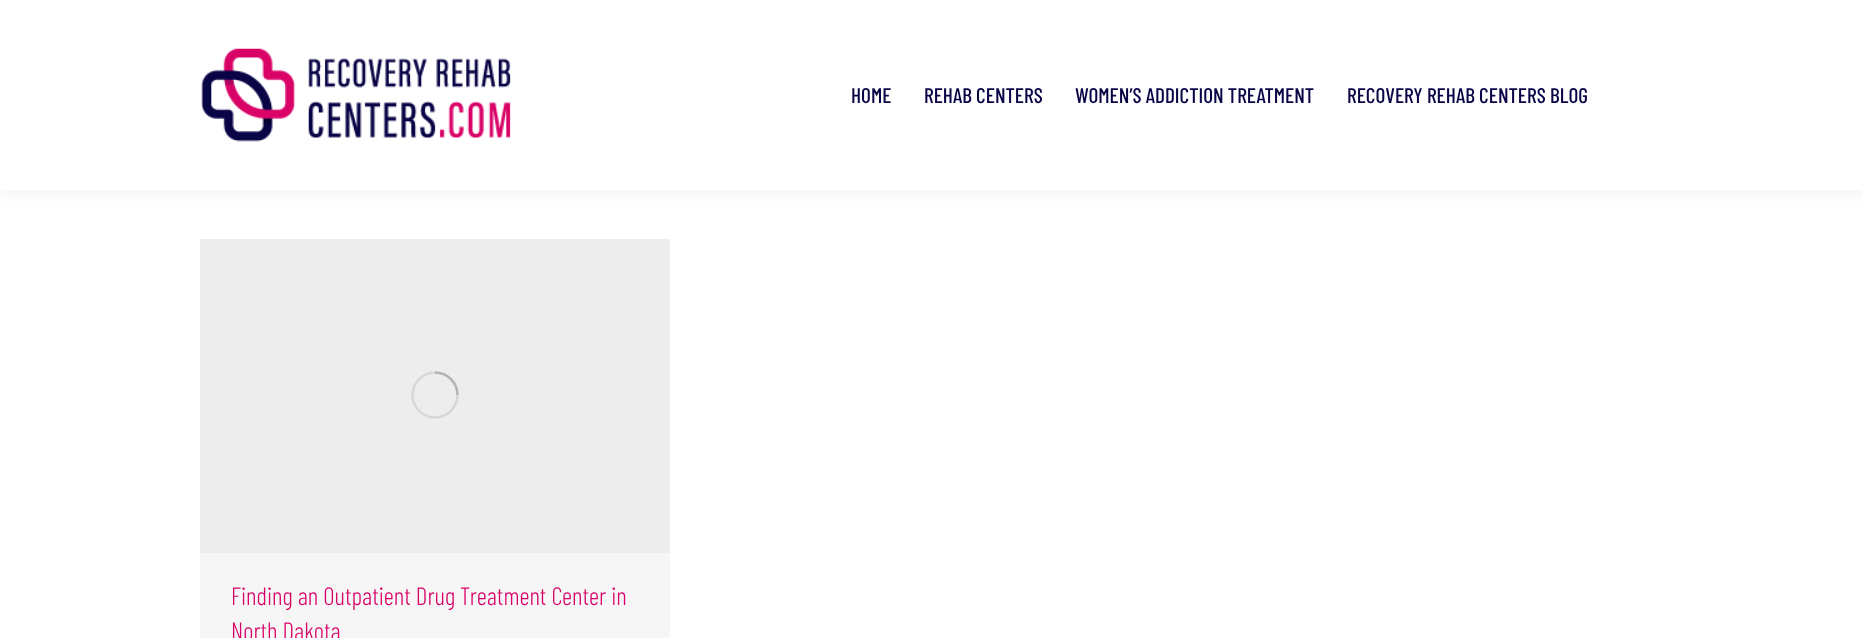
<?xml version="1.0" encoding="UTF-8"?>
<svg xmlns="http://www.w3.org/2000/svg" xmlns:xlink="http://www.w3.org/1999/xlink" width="1862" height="638">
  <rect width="100%" height="100%" fill="#ffffff" />
  <rect x="-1" y="-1" width="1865" height="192" fill="#000000" fill-opacity="0.07" filter="blur(9.5px)" />
  <rect width="1862" height="190" fill="#ffffff" />
  <image x="201" y="48" width="310" height="94" xlink:href="image1.png" />
  <rect x="200" y="553" width="470" height="85" fill="#f6f6f6" />
  <rect x="200" y="239" width="470" height="314" fill="#eeedee" />
  <circle cx="435" cy="395" r="22.5" fill="none" stroke="#d8d6d9" stroke-width="2.5" />
  <path d="M 457.5 395 c 0 -12.5 -10 -22.5 -22.5 -22.5" fill="none" stroke="#4c4956" stroke-opacity="0.25" stroke-width="2.5" />
  <text x="851" y="103" style="font-family: Barlow Condensed; font-size: 21.25px; font-weight: 500; fill: #090446">HOME</text>
  <text x="924" y="103" style="font-family: Barlow Condensed; font-size: 21.25px; font-weight: 500; fill: #090446">REHAB CENTERS</text>
  <text x="1075" y="103" style="font-family: Barlow Condensed; font-size: 21.25px; font-weight: 500; fill: #090446">WOMEN’S ADDICTION TREATMENT</text>
  <text x="1347" y="103" style="font-family: Barlow Condensed; font-size: 21.25px; font-weight: 500; fill: #090446">RECOVERY REHAB CENTERS BLOG</text>
  <text x="231" y="605" style="font-family: Barlow Condensed; font-size: 25px; font-weight: 300; fill: #d90368">Finding an Outpatient Drug Treatment Center in</text>
  <text x="231" y="640" style="font-family: Barlow Condensed; font-size: 25px; font-weight: 300; fill: #d90368">North Dakota</text>
</svg>
